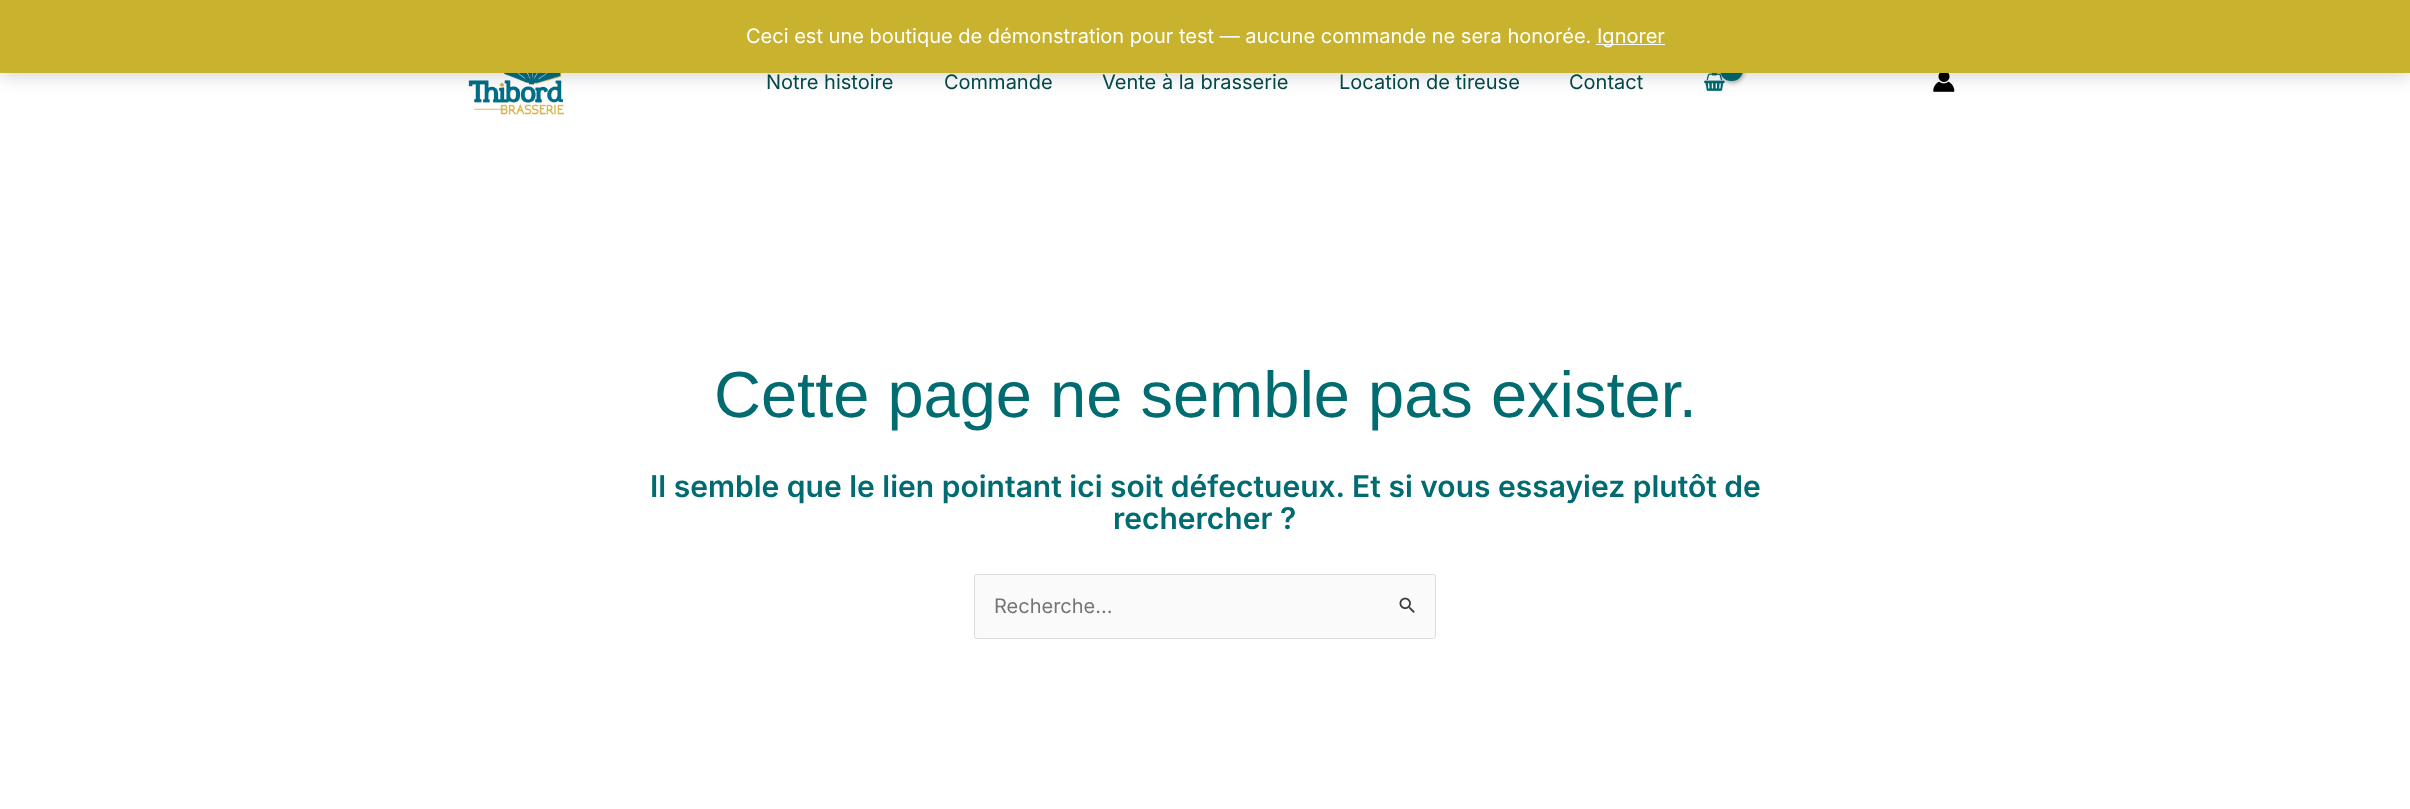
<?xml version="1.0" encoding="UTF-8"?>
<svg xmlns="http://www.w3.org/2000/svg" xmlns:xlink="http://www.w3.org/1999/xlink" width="2410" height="809">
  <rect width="100%" height="100%" fill="#ffffff" />
  <image x="468" y="73" width="97" height="42" xlink:href="image1.png" />
  <image x="1704" y="73" width="21" height="18" xlink:href="image2.png" />
  <rect x="1721" y="60" width="23" height="23" rx="11.5" fill="#000000" fill-opacity="0.3" filter="blur(2px)" />
  <rect x="1720" y="59" width="23" height="22" rx="11" fill="#006b70" />
  <image x="1933" y="73" width="22" height="19" xlink:href="image3.png" />
  <rect y="1" width="2410" height="73" fill="#000000" fill-opacity="0.2" filter="blur(10px)" />
  <rect width="2410" height="73" fill="#c9b22e" />
  <rect x="1596" y="44" width="69" height="1" fill="#ffffff" />
  <rect x="974.5" y="574.5" width="461" height="64" rx="2" fill="#fafafa" stroke="#dddddd" />
  <image x="1399" y="597" width="16" height="16" xlink:href="image4.png" />
  <text x="746" y="43" style="font-family: Inter; font-size: 20px; fill: #ffffff">Ceci est une boutique de démonstration pour test — aucune commande ne sera honorée.</text>
  <text x="1597" y="43" style="font-family: Inter; font-size: 20px; fill: #ffffff">Ignorer</text>
  <text x="766" y="89" style="font-family: Inter; font-size: 20px; fill: #004747">Notre histoire</text>
  <text x="944" y="89" style="font-family: Inter; font-size: 20px; fill: #004747">Commande</text>
  <text x="1102" y="89" style="font-family: Inter; font-size: 20px; fill: #004747">Vente à la brasserie</text>
  <text x="1339" y="89" style="font-family: Inter; font-size: 20px; fill: #004747">Location de tireuse</text>
  <text x="1569" y="89" style="font-family: Inter; font-size: 20px; fill: #004747">Contact</text>
  <text x="714" y="417" style="font-family: Liberation Sans; font-size: 65px; fill: #006b70">Cette page ne semble pas exister.</text>
  <text x="650" y="497" style="font-family: Inter; font-size: 30px; font-weight: 600; fill: #006b70">Il semble que le lien pointant ici soit défectueux. Et si vous essayiez plutôt de</text>
  <text x="1113" y="529" style="font-family: Inter; font-size: 30px; font-weight: 600; fill: #006b70">rechercher ?</text>
  <text x="994" y="613" style="font-family: Inter; font-size: 20px; fill: #757575">Recherche…</text>
</svg>
